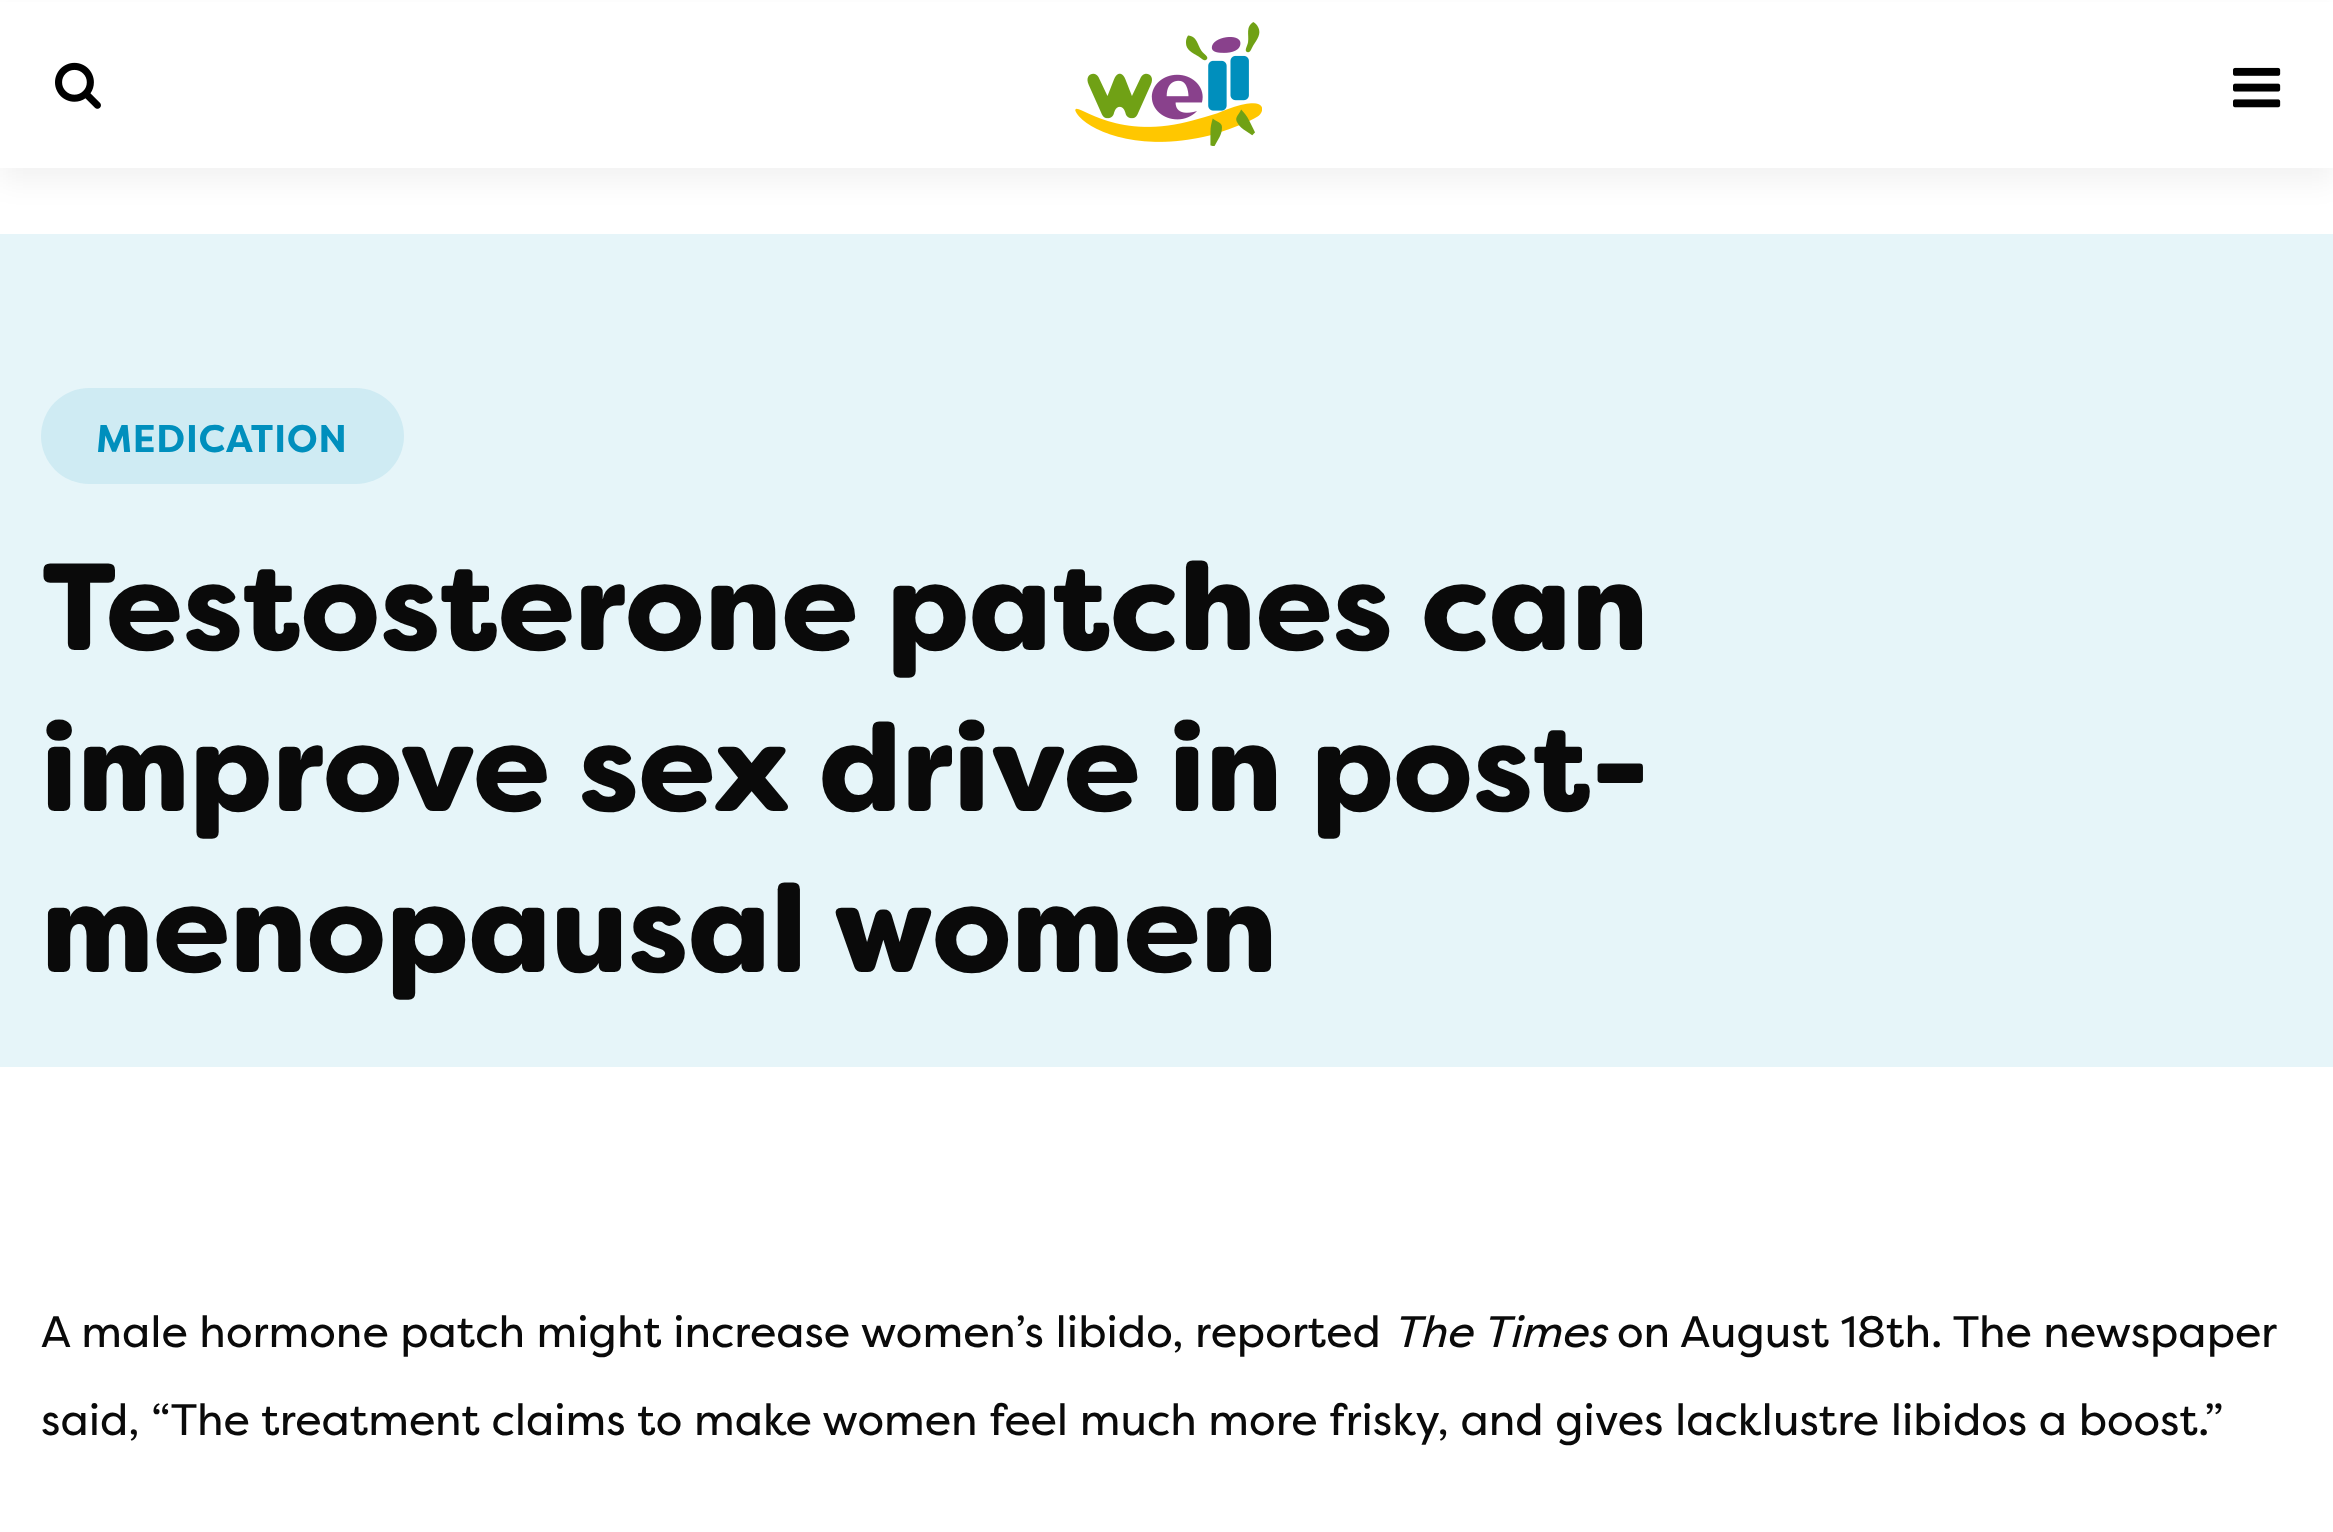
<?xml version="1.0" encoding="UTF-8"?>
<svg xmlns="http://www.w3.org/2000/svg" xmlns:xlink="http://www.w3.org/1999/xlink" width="2333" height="1532">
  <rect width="100%" height="100%" fill="#ffffff" />
  <rect y="14" width="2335" height="168" fill="#000000" fill-opacity="0.05" filter="blur(14px)" />
  <rect y="2" width="2333" height="166" fill="#ffffff" />
  <image x="1075" y="22" width="187" height="124" xlink:href="image1.png" />
  <image x="55" y="62" width="46" height="47" xlink:href="image2.png" />
  <image x="2233" y="67" width="48" height="41" xlink:href="image3.png" />
  <rect y="234" width="2333" height="833" fill="#e6f5f9" />
  <rect x="41" y="388" width="363" height="96" rx="48" fill="#cfebf3" />
  <text x="96" y="452" style="font-family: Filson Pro; font-size: 38.5px; font-weight: bold; letter-spacing: 0.5px; fill: #008fbd">MEDICATION</text>
  <text x="41" y="650" style="font-family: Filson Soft; font-size: 123.75px; font-weight: 900; fill: #0a0a0a">Testosterone patches can</text>
  <text x="41" y="811" style="font-family: Filson Soft; font-size: 123.75px; font-weight: 900; fill: #0a0a0a">improve sex drive in post-</text>
  <text x="41" y="972" style="font-family: Filson Soft; font-size: 123.75px; font-weight: 900; fill: #0a0a0a">menopausal women</text>
  <text x="41" y="1347" style="font-family: Filson Pro; font-size: 44px; fill: #0a0a0a">A male hormone patch might increase women’s libido, reported</text>
  <text x="1393" y="1347" style="font-family: Filson Pro; font-size: 44px; font-style: italic; fill: #0a0a0a">The Times</text>
  <text x="1617" y="1347" style="font-family: Filson Pro; font-size: 44px; fill: #0a0a0a">on August 18th. The newspaper</text>
  <text x="41" y="1435" style="font-family: Filson Pro; font-size: 44px; fill: #0a0a0a">said, “The treatment claims to make women feel much more frisky, and gives lacklustre libidos a boost.”</text>
</svg>
